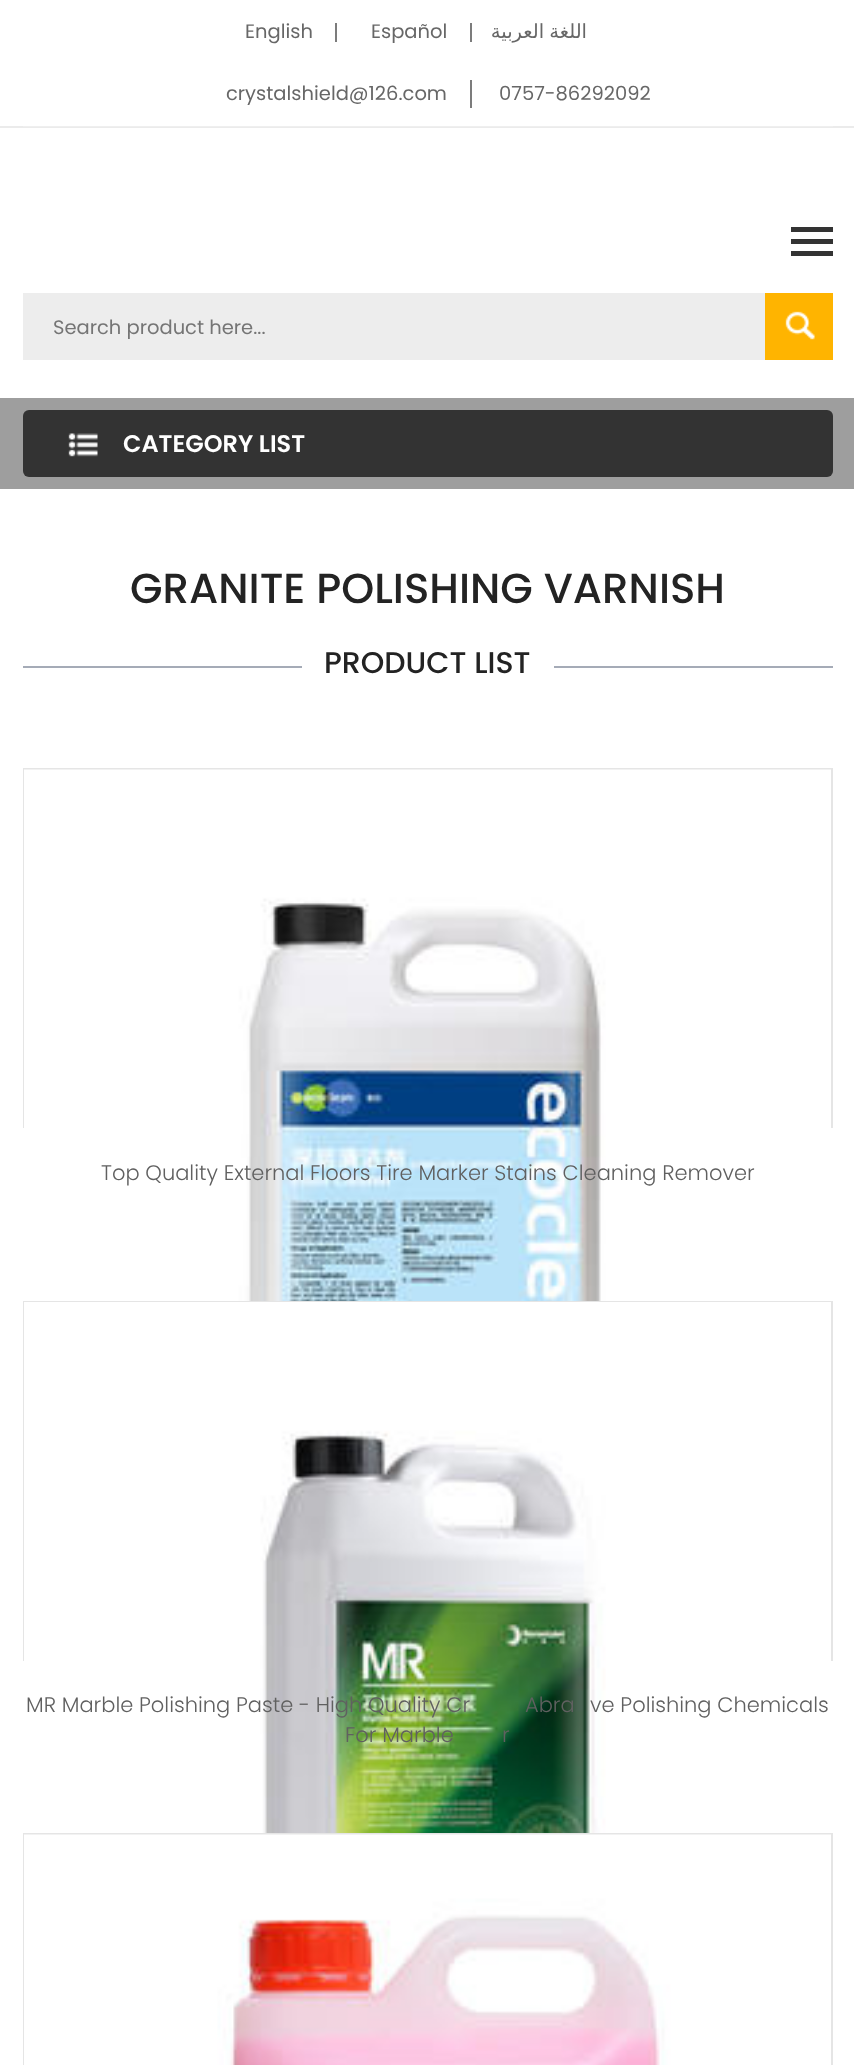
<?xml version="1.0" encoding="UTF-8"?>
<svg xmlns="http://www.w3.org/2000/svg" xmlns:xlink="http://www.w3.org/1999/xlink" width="854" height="2065">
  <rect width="100%" height="100%" fill="#ffffff" />
  <rect y="126" width="854" height="2" fill="#ebebeb" />
  <rect x="23" y="126" width="810" height="1" fill="#efefef" />
  <rect x="335" y="23" width="2" height="19" fill="#7c7c7c" />
  <rect x="470" y="23" width="2" height="19" fill="#7c7c7c" />
  <rect x="470" y="80" width="2" height="28" fill="#7c7c7c" />
  <rect x="791" y="227" width="42" height="5" fill="#333333" />
  <rect x="791" y="239" width="42" height="5" fill="#333333" />
  <rect x="791" y="251" width="42" height="5" fill="#333333" />
  <rect x="23" y="293" width="742" height="67" fill="#ededed" />
  <rect x="765" y="293" width="68" height="67" fill="#ffb400" />
  <image x="785" y="311" width="30" height="29" xlink:href="image1.png" />
  <rect y="398" width="854" height="91" fill="#9e9e9e" />
  <rect x="23" y="410" width="810" height="67" rx="6" fill="#333333" />
  <image x="68" y="433" width="30" height="24" xlink:href="image2.png" />
  <rect x="23" y="666" width="279" height="2" fill="#a5abb7" />
  <rect x="554" y="666" width="279" height="2" fill="#a5abb7" />
  <rect x="24" y="769" width="808" height="358" fill="none" stroke="#e5e5e5" stroke-width="2" />
  <image x="24" y="769" width="807" height="532" xlink:href="image3.png" />
  <rect x="24" y="1302" width="808" height="358" fill="none" stroke="#e5e5e5" stroke-width="2" />
  <image x="24" y="1302" width="807" height="531" xlink:href="image4.png" />
  <rect x="24" y="1834" width="808" height="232" fill="none" stroke="#e5e5e5" stroke-width="2" />
  <image x="24" y="1834" width="807" height="231" xlink:href="image5.png" />
  <text x="245" y="38" style="font-family: Poppins; font-size: 19.5px; fill: #676767">English</text>
  <text x="371" y="38" style="font-family: Poppins; font-size: 19.5px; fill: #676767">Español</text>
  <text x="587" y="38" word-spacing="-1" style="font-family: DejaVu Sans; font-size: 19.5px; direction: rtl; fill: #676767">اللغة العربية</text>
  <text x="226" y="100" style="font-family: Poppins; font-size: 19.5px; fill: #676767">crystalshield@126.com</text>
  <text x="499" y="100" style="font-family: Poppins; font-size: 19.5px; fill: #676767">0757-86292092</text>
  <text x="53" y="334" style="font-family: Poppins; font-size: 19.5px; fill: #757575">Search product here...</text>
  <text x="123" y="452" style="font-family: Poppins; font-size: 24px; font-weight: 600; fill: #ffffff">CATEGORY LIST</text>
  <text x="130" y="603" style="font-family: Poppins; font-size: 42px; font-weight: 500; fill: #232323">GRANITE POLISHING VARNISH</text>
  <text x="324" y="673" style="font-family: Poppins; font-size: 30px; font-weight: 500; fill: #232323">PRODUCT LIST</text>
  <text x="101" y="1180" style="font-family: Poppins; font-size: 21px; font-weight: 300; fill: #606060">Top Quality External Floors Tire Marker Stains Cleaning Remover</text>
  <text x="26" y="1712" style="font-family: Poppins; font-size: 21px; font-weight: 300; fill: #606060">MR Marble Polishing Paste - High Quality Cr</text>
  <text x="525" y="1712" style="font-family: Poppins; font-size: 21px; font-weight: 300; fill: #606060">Abra</text>
  <text x="590" y="1712" style="font-family: Poppins; font-size: 21px; font-weight: 300; fill: #606060">ve Polishing Chemicals</text>
  <text x="345" y="1742" style="font-family: Poppins; font-size: 21px; font-weight: 300; fill: #606060">For Marble</text>
  <text x="502" y="1742" style="font-family: Poppins; font-size: 21px; font-weight: 300; fill: #606060">r</text>
</svg>
